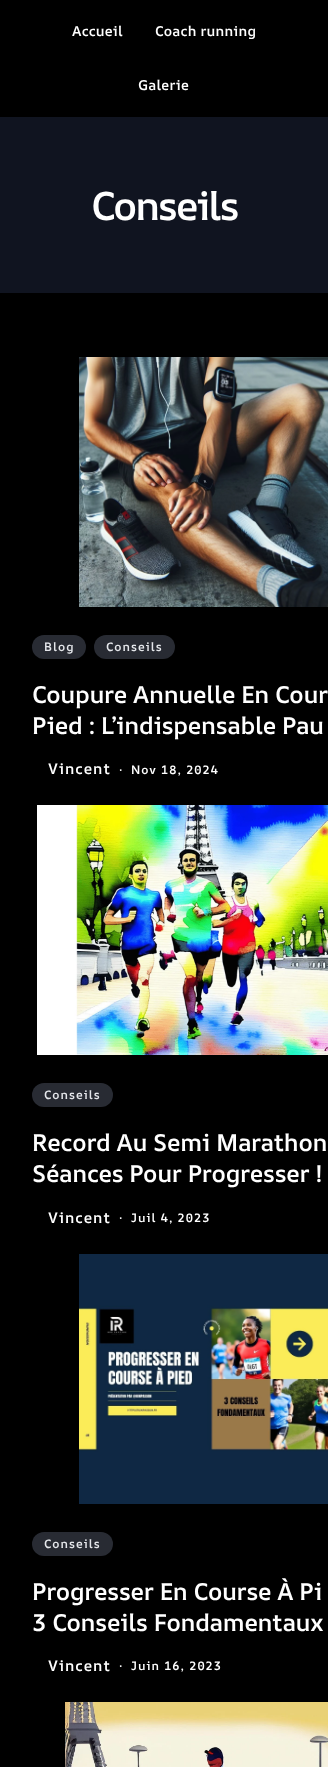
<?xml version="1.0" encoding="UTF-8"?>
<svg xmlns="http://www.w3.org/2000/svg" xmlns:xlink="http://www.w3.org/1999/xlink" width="328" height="1767">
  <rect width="100%" height="100%" fill="#000000" />
  <rect y="117" width="328" height="176" fill="#101420" />
  <image x="79" y="357" width="249" height="250" xlink:href="image1.png" />
  <rect x="32" y="635" width="54" height="24" rx="12" fill="#282b33" />
  <rect x="94" y="635" width="81" height="24" rx="12" fill="#282b33" />
  <image x="37" y="805" width="291" height="250" xlink:href="image2.png" />
  <rect x="32" y="1083" width="81" height="24" rx="12" fill="#282b33" />
  <image x="79" y="1254" width="249" height="250" xlink:href="image3.png" />
  <rect x="32" y="1532" width="81" height="24" rx="12" fill="#282b33" />
  <image x="65" y="1702" width="263" height="65" xlink:href="image4.png" />
  <text x="72" y="36" style="font-family: AR One Sans; font-size: 14px; font-weight: 600; letter-spacing: 0.25px; fill: #ffffff">Accueil</text>
  <text x="155" y="36" style="font-family: AR One Sans; font-size: 14px; font-weight: 600; letter-spacing: 0.25px; fill: #ffffff">Coach running</text>
  <text x="138" y="90" style="font-family: AR One Sans; font-size: 14px; font-weight: 600; letter-spacing: 0.25px; fill: #ffffff">Galerie</text>
  <text x="91" y="220" style="font-family: AR One Sans; font-size: 40px; font-weight: 600; letter-spacing: -2px; fill: #ffffff">Conseils</text>
  <text x="44" y="651" style="font-family: AR One Sans; font-size: 12px; font-weight: 600; letter-spacing: 1px; fill: #e5e7eb">Blog</text>
  <text x="106" y="651" style="font-family: AR One Sans; font-size: 12px; font-weight: 600; letter-spacing: 1px; fill: #e5e7eb">Conseils</text>
  <text x="32" y="703" style="font-family: AR One Sans; font-size: 24px; font-weight: 600; letter-spacing: -0.25px; fill: #ffffff">Coupure Annuelle En Cour</text>
  <text x="32" y="734" style="font-family: AR One Sans; font-size: 24px; font-weight: 600; letter-spacing: -0.25px; fill: #ffffff">Pied : L’indispensable Pau</text>
  <text x="48" y="774" style="font-family: AR One Sans; font-size: 15px; font-weight: 600; letter-spacing: 1px; fill: #ffffff">Vincent</text>
  <text x="119" y="774" style="font-family: AR One Sans; font-size: 12px; font-weight: 600; letter-spacing: 1px; fill: #ffffff">·</text>
  <text x="131" y="774" style="font-family: AR One Sans; font-size: 12px; font-weight: 600; letter-spacing: 1px; fill: #ffffff">Nov 18, 2024</text>
  <text x="44" y="1099" style="font-family: AR One Sans; font-size: 12px; font-weight: 600; letter-spacing: 1px; fill: #e5e7eb">Conseils</text>
  <text x="32" y="1151" style="font-family: AR One Sans; font-size: 24px; font-weight: 600; letter-spacing: -0.25px; fill: #ffffff">Record Au Semi Marathon</text>
  <text x="32" y="1182" style="font-family: AR One Sans; font-size: 24px; font-weight: 600; letter-spacing: -0.25px; fill: #ffffff">Séances Pour Progresser !</text>
  <text x="48" y="1223" style="font-family: AR One Sans; font-size: 15px; font-weight: 600; letter-spacing: 1px; fill: #ffffff">Vincent</text>
  <text x="119" y="1222" style="font-family: AR One Sans; font-size: 12px; font-weight: 600; letter-spacing: 1px; fill: #ffffff">·</text>
  <text x="131" y="1222" style="font-family: AR One Sans; font-size: 12px; font-weight: 600; letter-spacing: 1px; fill: #ffffff">Juil 4, 2023</text>
  <text x="44" y="1548" style="font-family: AR One Sans; font-size: 12px; font-weight: 600; letter-spacing: 1px; fill: #e5e7eb">Conseils</text>
  <text x="32" y="1600" style="font-family: AR One Sans; font-size: 24px; font-weight: 600; letter-spacing: -0.25px; fill: #ffffff">Progresser En Course À Pi</text>
  <text x="32" y="1631" style="font-family: AR One Sans; font-size: 24px; font-weight: 600; letter-spacing: -0.25px; fill: #ffffff">3 Conseils Fondamentaux</text>
  <text x="48" y="1671" style="font-family: AR One Sans; font-size: 15px; font-weight: 600; letter-spacing: 1px; fill: #ffffff">Vincent</text>
  <text x="119" y="1670" style="font-family: AR One Sans; font-size: 12px; font-weight: 600; letter-spacing: 1px; fill: #ffffff">·</text>
  <text x="131" y="1670" style="font-family: AR One Sans; font-size: 12px; font-weight: 600; letter-spacing: 1px; fill: #ffffff">Juin 16, 2023</text>
</svg>
